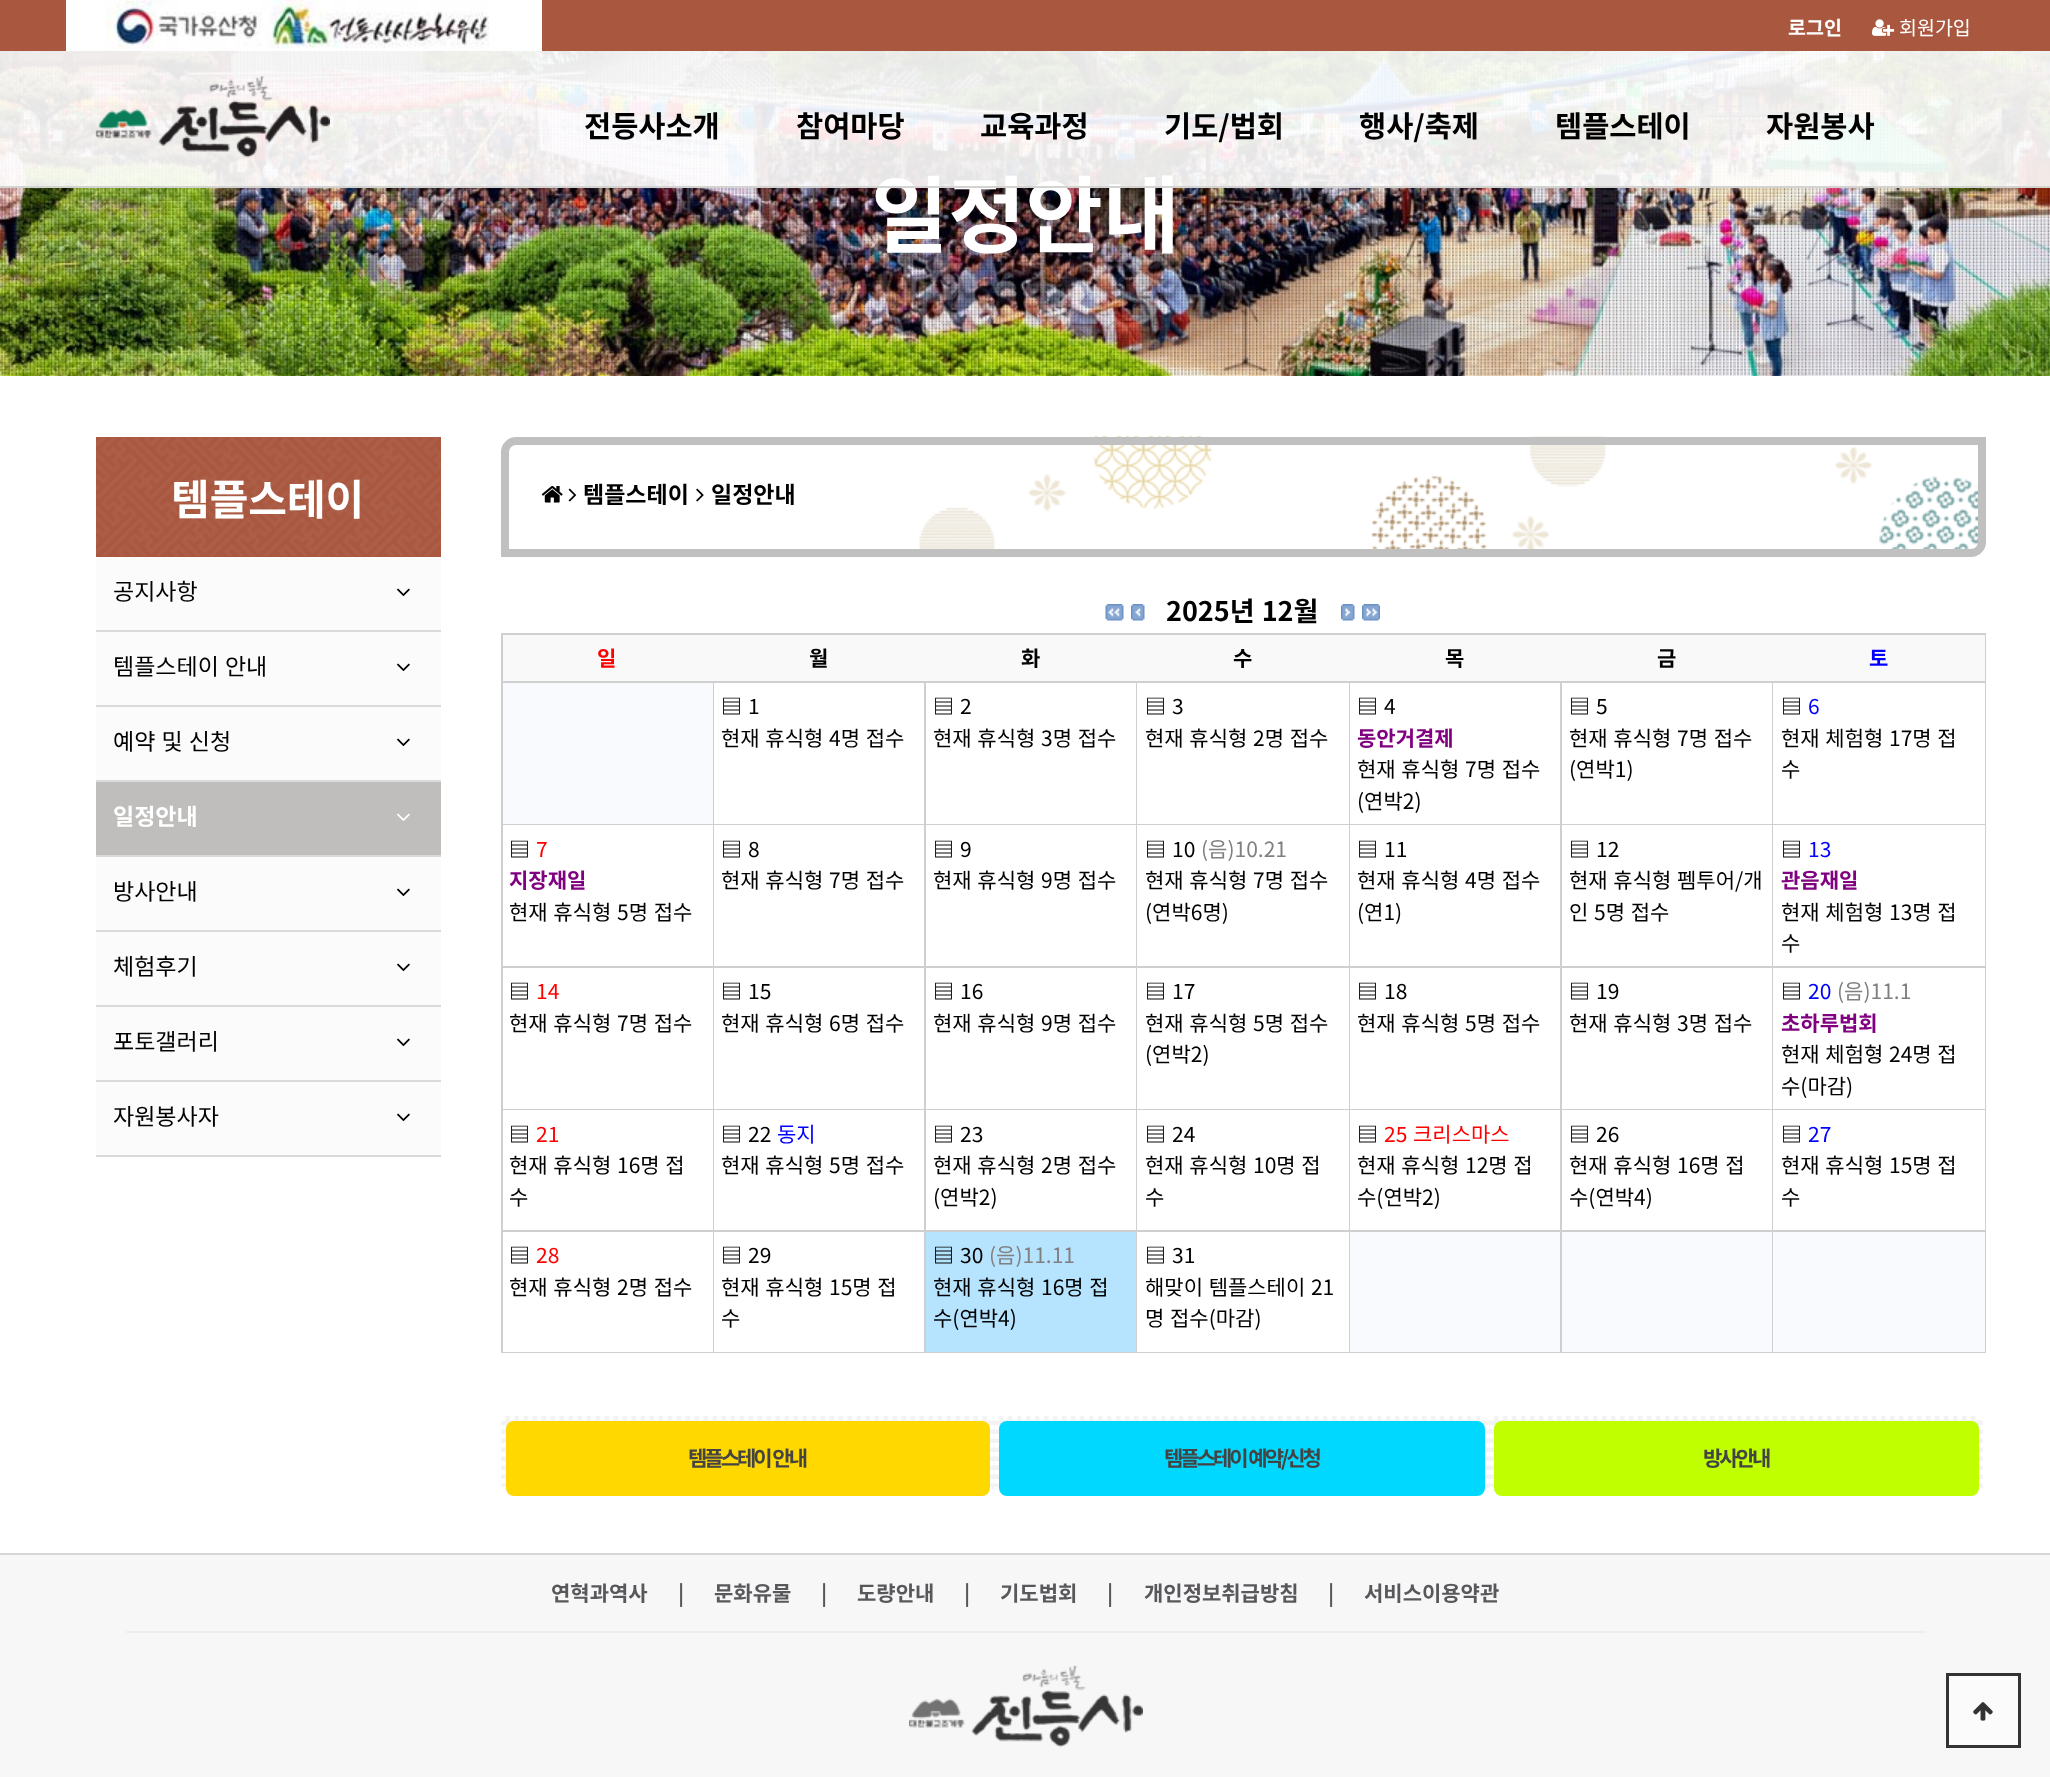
<?xml version="1.0" encoding="UTF-8"?>
<svg xmlns="http://www.w3.org/2000/svg" xmlns:xlink="http://www.w3.org/1999/xlink" width="2050" height="1777">
  <rect width="100%" height="100%" fill="#ffffff" />
  <rect width="2050" height="51" fill="#a9573f" />
  <rect x="66" width="476" height="51" fill="#ffffff" />
  <image x="105" y="0" width="384" height="49" xlink:href="image1.png" />
  <image x="1872" y="19" width="23" height="17" xlink:href="image2.png" />
  <image x="0" y="51" width="2050" height="325" xlink:href="image4.png" />
  <rect x="96" y="437" width="345" height="120" fill="#a9573f" />
  <image x="96" y="437" width="345" height="119" xlink:href="image5.png" />
  <rect x="96" y="557" width="345" height="73" fill="#fbfbfc" />
  <rect x="96" y="630" width="345" height="2" fill="#dadada" />
  <image x="397" y="588" width="13" height="9" xlink:href="image6.png" />
  <rect x="96" y="632" width="345" height="73" fill="#fbfbfc" />
  <rect x="96" y="705" width="345" height="2" fill="#dadada" />
  <image x="397" y="663" width="13" height="9" xlink:href="image6.png" />
  <rect x="96" y="707" width="345" height="73" fill="#fbfbfc" />
  <rect x="96" y="780" width="345" height="2" fill="#dadada" />
  <image x="397" y="738" width="13" height="9" xlink:href="image6.png" />
  <rect x="96" y="782" width="345" height="73" fill="#bfbebd" />
  <rect x="96" y="855" width="345" height="2" fill="#dadada" />
  <image x="397" y="813" width="13" height="8" xlink:href="image7.png" />
  <rect x="96" y="857" width="345" height="73" fill="#fbfbfc" />
  <rect x="96" y="930" width="345" height="2" fill="#dadada" />
  <image x="397" y="888" width="13" height="9" xlink:href="image6.png" />
  <rect x="96" y="932" width="345" height="73" fill="#fbfbfc" />
  <rect x="96" y="1005" width="345" height="2" fill="#dadada" />
  <image x="397" y="963" width="13" height="9" xlink:href="image6.png" />
  <rect x="96" y="1007" width="345" height="73" fill="#fbfbfc" />
  <rect x="96" y="1080" width="345" height="2" fill="#dadada" />
  <image x="397" y="1038" width="13" height="9" xlink:href="image6.png" />
  <rect x="96" y="1082" width="345" height="73" fill="#fbfbfc" />
  <rect x="96" y="1155" width="345" height="2" fill="#dadada" />
  <image x="397" y="1113" width="13" height="9" xlink:href="image6.png" />
  <image x="919" y="436" width="1060" height="113" xlink:href="image8.png" />
  <path d="M 516 441 h 1466 v 101 c 0 6 -5 11 -11 11 h -1466 v -101 c 0 -6 5 -11 11 -11 z" fill="none" stroke="#c0c0c0" stroke-width="8" />
  <image x="541" y="486" width="22" height="17" xlink:href="image9.png" />
  <image x="568" y="488" width="9" height="14" xlink:href="image10.png" />
  <image x="696" y="488" width="8" height="14" xlink:href="image11.png" />
  <image x="1105" y="604" width="19" height="17" xlink:href="image12.png" />
  <image x="1131" y="604" width="14" height="17" xlink:href="image13.png" />
  <image x="1341" y="604" width="14" height="17" xlink:href="image14.png" />
  <image x="1362" y="604" width="18" height="17" xlink:href="image15.png" />
  <rect x="501" y="633" width="1485" height="720" fill="#cfcfcf" />
  <rect x="503" y="635" width="1482" height="46" fill="#f9f9f9" />
  <rect x="503" y="683" width="210" height="141" fill="#f9fafe" />
  <rect x="714" y="683" width="210" height="141" fill="#ffffff" />
  <rect x="926" y="683" width="210" height="141" fill="#ffffff" />
  <rect x="1137" y="683" width="212" height="141" fill="#ffffff" />
  <rect x="1350" y="683" width="210" height="141" fill="#ffffff" />
  <rect x="1562" y="683" width="210" height="141" fill="#ffffff" />
  <rect x="1773" y="683" width="212" height="141" fill="#ffffff" />
  <rect x="503" y="825" width="210" height="141" fill="#ffffff" />
  <rect x="714" y="825" width="210" height="141" fill="#ffffff" />
  <rect x="926" y="825" width="210" height="141" fill="#ffffff" />
  <rect x="1137" y="825" width="212" height="141" fill="#ffffff" />
  <rect x="1350" y="825" width="210" height="141" fill="#ffffff" />
  <rect x="1562" y="825" width="210" height="141" fill="#ffffff" />
  <rect x="1773" y="825" width="212" height="141" fill="#ffffff" />
  <rect x="503" y="968" width="210" height="141" fill="#ffffff" />
  <rect x="714" y="968" width="210" height="141" fill="#ffffff" />
  <rect x="926" y="968" width="210" height="141" fill="#ffffff" />
  <rect x="1137" y="968" width="212" height="141" fill="#ffffff" />
  <rect x="1350" y="968" width="210" height="141" fill="#ffffff" />
  <rect x="1562" y="968" width="210" height="141" fill="#ffffff" />
  <rect x="1773" y="968" width="212" height="141" fill="#ffffff" />
  <rect x="503" y="1110" width="210" height="120" fill="#ffffff" />
  <rect x="714" y="1110" width="210" height="120" fill="#ffffff" />
  <rect x="926" y="1110" width="210" height="120" fill="#ffffff" />
  <rect x="1137" y="1110" width="212" height="120" fill="#ffffff" />
  <rect x="1350" y="1110" width="210" height="120" fill="#ffffff" />
  <rect x="1562" y="1110" width="210" height="120" fill="#ffffff" />
  <rect x="1773" y="1110" width="212" height="120" fill="#ffffff" />
  <rect x="503" y="1232" width="210" height="120" fill="#ffffff" />
  <rect x="714" y="1232" width="210" height="120" fill="#ffffff" />
  <rect x="926" y="1232" width="210" height="120" fill="#b6e4ff" />
  <rect x="1137" y="1232" width="212" height="120" fill="#ffffff" />
  <rect x="1350" y="1232" width="210" height="120" fill="#f9fafe" />
  <rect x="1562" y="1232" width="210" height="120" fill="#f9fafe" />
  <rect x="1773" y="1232" width="212" height="120" fill="#f9fafe" />
  <rect x="501" y="1416" width="1482" height="75" fill="#f3f3f3" />
  <path d="M 501 1418 h 493.5" fill="none" stroke="#ffffff" stroke-width="4.5" stroke-dasharray="4.5 4.5" />
  <path d="M 992 1416 v 75" fill="none" stroke="#ffffff" stroke-width="4.5" stroke-dasharray="4.5 4.5" />
  <path d="M 501 1489 h 493.5" fill="none" stroke="#ffffff" stroke-width="4.5" stroke-dasharray="4.5 4.5" />
  <path d="M 503 1416 v 75" fill="none" stroke="#ffffff" stroke-width="4.5" stroke-dasharray="4.5 4.5" />
  <rect x="506" y="1421" width="484" height="75" rx="8" fill="#ffd800" />
  <path d="M 994.5 1418 h 495" fill="none" stroke="#ffffff" stroke-width="4.5" stroke-dasharray="4.5 4.5" />
  <path d="M 1487 1416 v 75" fill="none" stroke="#ffffff" stroke-width="4.5" stroke-dasharray="4.5 4.5" />
  <path d="M 994.5 1489 h 495" fill="none" stroke="#ffffff" stroke-width="4.5" stroke-dasharray="4.5 4.5" />
  <path d="M 997 1416 v 75" fill="none" stroke="#ffffff" stroke-width="4.5" stroke-dasharray="4.5 4.5" />
  <rect x="999" y="1421" width="486" height="75" rx="8" fill="#00d8ff" />
  <path d="M 1489.5 1418 h 493.5" fill="none" stroke="#ffffff" stroke-width="4.5" stroke-dasharray="4.5 4.5" />
  <path d="M 1981 1416 v 75" fill="none" stroke="#ffffff" stroke-width="4.5" stroke-dasharray="4.5 4.5" />
  <path d="M 1489.5 1489 h 493.5" fill="none" stroke="#ffffff" stroke-width="4.5" stroke-dasharray="4.5 4.5" />
  <path d="M 1492 1416 v 75" fill="none" stroke="#ffffff" stroke-width="4.5" stroke-dasharray="4.5 4.5" />
  <rect x="1494" y="1421" width="485" height="75" rx="8" fill="#c0ff00" />
  <rect y="1555" width="2050" height="222" fill="#f7f7f7" />
  <rect y="1553" width="2050" height="2" fill="#d5d5d5" />
  <rect x="126" y="1631" width="1800" height="2" fill="#eeeeee" />
  <image x="909" y="1665" width="234" height="83" xlink:href="image16.png" />
  <rect x="1947.5" y="1674.5" width="72" height="72" fill="#fbfbfb" stroke="#333333" stroke-width="3" />
  <image x="1973" y="1702" width="20" height="19" xlink:href="image17.png" />
  <text x="1788" y="35" style="font-family: Noto Sans KR; font-size: 19.5px; font-weight: bold; fill: #ffffff">로그인</text>
  <text x="1899" y="35" style="font-family: Noto Sans KR; font-size: 19.5px; fill: #ffffff">회원가입</text>
  <text x="871" y="246" style="font-family: Noto Sans KR; font-size: 84px; font-weight: bold; fill: #ffffff">일정안내</text>
  <rect y="51" width="2050" height="135" fill="#ffffff" fill-opacity="0.9" />
  <text x="584" y="137" style="font-family: Noto Sans KR; font-size: 29.5px; font-weight: bold; fill: #000000">전등사소개</text>
  <text x="796" y="137" style="font-family: Noto Sans KR; font-size: 29.5px; font-weight: bold; fill: #000000">참여마당</text>
  <text x="980" y="137" style="font-family: Noto Sans KR; font-size: 29.5px; font-weight: bold; fill: #000000">교육과정</text>
  <text x="1164" y="137" style="font-family: Noto Sans KR; font-size: 29.5px; font-weight: bold; fill: #000000">기도/법회</text>
  <text x="1359" y="137" style="font-family: Noto Sans KR; font-size: 29.5px; font-weight: bold; fill: #000000">행사/축제</text>
  <text x="1555" y="137" style="font-family: Noto Sans KR; font-size: 29.5px; font-weight: bold; fill: #000000">템플스테이</text>
  <text x="1766" y="137" style="font-family: Noto Sans KR; font-size: 29.5px; font-weight: bold; fill: #000000">자원봉사</text>
  <image x="95" y="76" width="235" height="82" xlink:href="image3.png" />
  <rect y="186" width="2050" height="2" fill="#d3d3d2" />
  <text x="171" y="515" style="font-family: Noto Sans KR; font-size: 42px; font-weight: bold; fill: #ffffff">템플스테이</text>
  <text x="113" y="600" style="font-family: Noto Sans KR; font-size: 23px; fill: #000000">공지사항</text>
  <text x="113" y="675" word-spacing="1" style="font-family: Noto Sans KR; font-size: 23px; fill: #000000">템플스테이 안내</text>
  <text x="113" y="750" word-spacing="1" style="font-family: Noto Sans KR; font-size: 23px; fill: #000000">예약 및 신청</text>
  <text x="113" y="825" style="font-family: Noto Sans KR; font-size: 23px; font-weight: bold; fill: #ffffff">일정안내</text>
  <text x="113" y="900" style="font-family: Noto Sans KR; font-size: 23px; fill: #000000">방사안내</text>
  <text x="113" y="975" style="font-family: Noto Sans KR; font-size: 23px; fill: #000000">체험후기</text>
  <text x="113" y="1050" style="font-family: Noto Sans KR; font-size: 23px; fill: #000000">포토갤러리</text>
  <text x="113" y="1125" style="font-family: Noto Sans KR; font-size: 23px; fill: #000000">자원봉사자</text>
  <text x="583" y="503" style="font-family: Noto Sans KR; font-size: 23px; font-weight: bold; fill: #000000">템플스테이</text>
  <text x="711" y="503" style="font-family: Noto Sans KR; font-size: 23px; font-weight: bold; fill: #000000">일정안내</text>
  <text x="1166" y="621" word-spacing="1" style="font-family: Noto Sans KR; font-size: 27px; font-weight: bold; fill: #000000">2025년 12월</text>
  <text x="597" y="666" style="font-family: Noto Sans KR; font-size: 21px; font-weight: bold; fill: #ff0000">일</text>
  <text x="809" y="666" style="font-family: Noto Sans KR; font-size: 21px; font-weight: bold; fill: #000000">월</text>
  <text x="1021" y="666" style="font-family: Noto Sans KR; font-size: 21px; font-weight: bold; fill: #000000">화</text>
  <text x="1233" y="666" style="font-family: Noto Sans KR; font-size: 21px; font-weight: bold; fill: #000000">수</text>
  <text x="1445" y="666" style="font-family: Noto Sans KR; font-size: 21px; font-weight: bold; fill: #000000">목</text>
  <text x="1657" y="666" style="font-family: Noto Sans KR; font-size: 21px; font-weight: bold; fill: #000000">금</text>
  <text x="1869" y="666" style="font-family: Noto Sans KR; font-size: 21px; font-weight: bold; fill: #0000ff">토</text>
  <text x="721" y="714" style="font-family: Noto Sans KR; font-size: 21px; font-weight: bold; fill: #000000">▤</text>
  <text x="748" y="714" style="font-family: Noto Sans KR; font-size: 21px; fill: #000000">1</text>
  <text x="721" y="746" word-spacing="1" style="font-family: Noto Sans KR; font-size: 21px; fill: #000000">현재 휴식형 4명 접수</text>
  <text x="933" y="714" style="font-family: Noto Sans KR; font-size: 21px; font-weight: bold; fill: #000000">▤</text>
  <text x="960" y="714" style="font-family: Noto Sans KR; font-size: 21px; fill: #000000">2</text>
  <text x="933" y="746" word-spacing="1" style="font-family: Noto Sans KR; font-size: 21px; fill: #000000">현재 휴식형 3명 접수</text>
  <text x="1145" y="714" style="font-family: Noto Sans KR; font-size: 21px; font-weight: bold; fill: #000000">▤</text>
  <text x="1172" y="714" style="font-family: Noto Sans KR; font-size: 21px; fill: #000000">3</text>
  <text x="1145" y="746" word-spacing="1" style="font-family: Noto Sans KR; font-size: 21px; fill: #000000">현재 휴식형 2명 접수</text>
  <text x="1357" y="714" style="font-family: Noto Sans KR; font-size: 21px; font-weight: bold; fill: #000000">▤</text>
  <text x="1384" y="714" style="font-family: Noto Sans KR; font-size: 21px; fill: #000000">4</text>
  <text x="1357" y="746" style="font-family: Noto Sans KR; font-size: 21px; font-weight: bold; fill: #800080">동안거결제</text>
  <text x="1357" y="777" word-spacing="1" style="font-family: Noto Sans KR; font-size: 21px; fill: #000000">현재 휴식형 7명 접수</text>
  <text x="1357" y="809" style="font-family: Noto Sans KR; font-size: 21px; fill: #000000">(연박2)</text>
  <text x="1569" y="714" style="font-family: Noto Sans KR; font-size: 21px; font-weight: bold; fill: #000000">▤</text>
  <text x="1596" y="714" style="font-family: Noto Sans KR; font-size: 21px; fill: #000000">5</text>
  <text x="1569" y="746" word-spacing="1" style="font-family: Noto Sans KR; font-size: 21px; fill: #000000">현재 휴식형 7명 접수</text>
  <text x="1569" y="777" style="font-family: Noto Sans KR; font-size: 21px; fill: #000000">(연박1)</text>
  <text x="1781" y="714" style="font-family: Noto Sans KR; font-size: 21px; font-weight: bold; fill: #000000">▤</text>
  <text x="1808" y="714" style="font-family: Noto Sans KR; font-size: 21px; fill: #0000ff">6</text>
  <text x="1781" y="746" word-spacing="1" style="font-family: Noto Sans KR; font-size: 21px; fill: #000000">현재 체험형 17명 접</text>
  <text x="1781" y="777" style="font-family: Noto Sans KR; font-size: 21px; fill: #000000">수</text>
  <text x="509" y="857" style="font-family: Noto Sans KR; font-size: 21px; font-weight: bold; fill: #000000">▤</text>
  <text x="536" y="857" style="font-family: Noto Sans KR; font-size: 21px; fill: #ff0000">7</text>
  <text x="509" y="888" style="font-family: Noto Sans KR; font-size: 21px; font-weight: bold; fill: #800080">지장재일</text>
  <text x="509" y="920" word-spacing="1" style="font-family: Noto Sans KR; font-size: 21px; fill: #000000">현재 휴식형 5명 접수</text>
  <text x="721" y="857" style="font-family: Noto Sans KR; font-size: 21px; font-weight: bold; fill: #000000">▤</text>
  <text x="748" y="857" style="font-family: Noto Sans KR; font-size: 21px; fill: #000000">8</text>
  <text x="721" y="888" word-spacing="1" style="font-family: Noto Sans KR; font-size: 21px; fill: #000000">현재 휴식형 7명 접수</text>
  <text x="933" y="857" style="font-family: Noto Sans KR; font-size: 21px; font-weight: bold; fill: #000000">▤</text>
  <text x="960" y="857" style="font-family: Noto Sans KR; font-size: 21px; fill: #000000">9</text>
  <text x="933" y="888" word-spacing="1" style="font-family: Noto Sans KR; font-size: 21px; fill: #000000">현재 휴식형 9명 접수</text>
  <text x="1145" y="857" style="font-family: Noto Sans KR; font-size: 21px; font-weight: bold; fill: #000000">▤</text>
  <text x="1172" y="857" style="font-family: Noto Sans KR; font-size: 21px; fill: #000000">10</text>
  <text x="1201" y="857" style="font-family: Noto Sans KR; font-size: 21px; fill: #808080">(음)10.21</text>
  <text x="1145" y="888" word-spacing="1" style="font-family: Noto Sans KR; font-size: 21px; fill: #000000">현재 휴식형 7명 접수</text>
  <text x="1145" y="920" style="font-family: Noto Sans KR; font-size: 21px; fill: #000000">(연박6명)</text>
  <text x="1357" y="857" style="font-family: Noto Sans KR; font-size: 21px; font-weight: bold; fill: #000000">▤</text>
  <text x="1384" y="857" style="font-family: Noto Sans KR; font-size: 21px; fill: #000000">11</text>
  <text x="1357" y="888" word-spacing="1" style="font-family: Noto Sans KR; font-size: 21px; fill: #000000">현재 휴식형 4명 접수</text>
  <text x="1357" y="920" style="font-family: Noto Sans KR; font-size: 21px; fill: #000000">(연1)</text>
  <text x="1569" y="857" style="font-family: Noto Sans KR; font-size: 21px; font-weight: bold; fill: #000000">▤</text>
  <text x="1596" y="857" style="font-family: Noto Sans KR; font-size: 21px; fill: #000000">12</text>
  <text x="1569" y="888" word-spacing="1" style="font-family: Noto Sans KR; font-size: 21px; fill: #000000">현재 휴식형 펨투어/개</text>
  <text x="1569" y="920" word-spacing="1" style="font-family: Noto Sans KR; font-size: 21px; fill: #000000">인 5명 접수</text>
  <text x="1781" y="857" style="font-family: Noto Sans KR; font-size: 21px; font-weight: bold; fill: #000000">▤</text>
  <text x="1808" y="857" style="font-family: Noto Sans KR; font-size: 21px; fill: #0000ff">13</text>
  <text x="1781" y="888" style="font-family: Noto Sans KR; font-size: 21px; font-weight: bold; fill: #800080">관음재일</text>
  <text x="1781" y="920" word-spacing="1" style="font-family: Noto Sans KR; font-size: 21px; fill: #000000">현재 체험형 13명 접</text>
  <text x="1781" y="951" style="font-family: Noto Sans KR; font-size: 21px; fill: #000000">수</text>
  <text x="509" y="999" style="font-family: Noto Sans KR; font-size: 21px; font-weight: bold; fill: #000000">▤</text>
  <text x="536" y="999" style="font-family: Noto Sans KR; font-size: 21px; fill: #ff0000">14</text>
  <text x="509" y="1031" word-spacing="1" style="font-family: Noto Sans KR; font-size: 21px; fill: #000000">현재 휴식형 7명 접수</text>
  <text x="721" y="999" style="font-family: Noto Sans KR; font-size: 21px; font-weight: bold; fill: #000000">▤</text>
  <text x="748" y="999" style="font-family: Noto Sans KR; font-size: 21px; fill: #000000">15</text>
  <text x="721" y="1031" word-spacing="1" style="font-family: Noto Sans KR; font-size: 21px; fill: #000000">현재 휴식형 6명 접수</text>
  <text x="933" y="999" style="font-family: Noto Sans KR; font-size: 21px; font-weight: bold; fill: #000000">▤</text>
  <text x="960" y="999" style="font-family: Noto Sans KR; font-size: 21px; fill: #000000">16</text>
  <text x="933" y="1031" word-spacing="1" style="font-family: Noto Sans KR; font-size: 21px; fill: #000000">현재 휴식형 9명 접수</text>
  <text x="1145" y="999" style="font-family: Noto Sans KR; font-size: 21px; font-weight: bold; fill: #000000">▤</text>
  <text x="1172" y="999" style="font-family: Noto Sans KR; font-size: 21px; fill: #000000">17</text>
  <text x="1145" y="1031" word-spacing="1" style="font-family: Noto Sans KR; font-size: 21px; fill: #000000">현재 휴식형 5명 접수</text>
  <text x="1145" y="1062" style="font-family: Noto Sans KR; font-size: 21px; fill: #000000">(연박2)</text>
  <text x="1357" y="999" style="font-family: Noto Sans KR; font-size: 21px; font-weight: bold; fill: #000000">▤</text>
  <text x="1384" y="999" style="font-family: Noto Sans KR; font-size: 21px; fill: #000000">18</text>
  <text x="1357" y="1031" word-spacing="1" style="font-family: Noto Sans KR; font-size: 21px; fill: #000000">현재 휴식형 5명 접수</text>
  <text x="1569" y="999" style="font-family: Noto Sans KR; font-size: 21px; font-weight: bold; fill: #000000">▤</text>
  <text x="1596" y="999" style="font-family: Noto Sans KR; font-size: 21px; fill: #000000">19</text>
  <text x="1569" y="1031" word-spacing="1" style="font-family: Noto Sans KR; font-size: 21px; fill: #000000">현재 휴식형 3명 접수</text>
  <text x="1781" y="999" style="font-family: Noto Sans KR; font-size: 21px; font-weight: bold; fill: #000000">▤</text>
  <text x="1808" y="999" style="font-family: Noto Sans KR; font-size: 21px; fill: #0000ff">20</text>
  <text x="1837" y="999" style="font-family: Noto Sans KR; font-size: 21px; fill: #808080">(음)11.1</text>
  <text x="1781" y="1031" style="font-family: Noto Sans KR; font-size: 21px; font-weight: bold; fill: #800080">초하루법회</text>
  <text x="1781" y="1062" word-spacing="1" style="font-family: Noto Sans KR; font-size: 21px; fill: #000000">현재 체험형 24명 접</text>
  <text x="1781" y="1094" style="font-family: Noto Sans KR; font-size: 21px; fill: #000000">수(마감)</text>
  <text x="509" y="1142" style="font-family: Noto Sans KR; font-size: 21px; font-weight: bold; fill: #000000">▤</text>
  <text x="536" y="1142" style="font-family: Noto Sans KR; font-size: 21px; fill: #ff0000">21</text>
  <text x="509" y="1173" word-spacing="1" style="font-family: Noto Sans KR; font-size: 21px; fill: #000000">현재 휴식형 16명 접</text>
  <text x="509" y="1205" style="font-family: Noto Sans KR; font-size: 21px; fill: #000000">수</text>
  <text x="721" y="1142" style="font-family: Noto Sans KR; font-size: 21px; font-weight: bold; fill: #000000">▤</text>
  <text x="748" y="1142" style="font-family: Noto Sans KR; font-size: 21px; fill: #000000">22</text>
  <text x="777" y="1142" style="font-family: Noto Sans KR; font-size: 21px; fill: #0000ff">동지</text>
  <text x="721" y="1173" word-spacing="1" style="font-family: Noto Sans KR; font-size: 21px; fill: #000000">현재 휴식형 5명 접수</text>
  <text x="933" y="1142" style="font-family: Noto Sans KR; font-size: 21px; font-weight: bold; fill: #000000">▤</text>
  <text x="960" y="1142" style="font-family: Noto Sans KR; font-size: 21px; fill: #000000">23</text>
  <text x="933" y="1173" word-spacing="1" style="font-family: Noto Sans KR; font-size: 21px; fill: #000000">현재 휴식형 2명 접수</text>
  <text x="933" y="1205" style="font-family: Noto Sans KR; font-size: 21px; fill: #000000">(연박2)</text>
  <text x="1145" y="1142" style="font-family: Noto Sans KR; font-size: 21px; font-weight: bold; fill: #000000">▤</text>
  <text x="1172" y="1142" style="font-family: Noto Sans KR; font-size: 21px; fill: #000000">24</text>
  <text x="1145" y="1173" word-spacing="1" style="font-family: Noto Sans KR; font-size: 21px; fill: #000000">현재 휴식형 10명 접</text>
  <text x="1145" y="1205" style="font-family: Noto Sans KR; font-size: 21px; fill: #000000">수</text>
  <text x="1357" y="1142" style="font-family: Noto Sans KR; font-size: 21px; font-weight: bold; fill: #000000">▤</text>
  <text x="1384" y="1142" style="font-family: Noto Sans KR; font-size: 21px; fill: #ff0000">25</text>
  <text x="1413" y="1142" style="font-family: Noto Sans KR; font-size: 21px; fill: #ff0000">크리스마스</text>
  <text x="1357" y="1173" word-spacing="1" style="font-family: Noto Sans KR; font-size: 21px; fill: #000000">현재 휴식형 12명 접</text>
  <text x="1357" y="1205" style="font-family: Noto Sans KR; font-size: 21px; fill: #000000">수(연박2)</text>
  <text x="1569" y="1142" style="font-family: Noto Sans KR; font-size: 21px; font-weight: bold; fill: #000000">▤</text>
  <text x="1596" y="1142" style="font-family: Noto Sans KR; font-size: 21px; fill: #000000">26</text>
  <text x="1569" y="1173" word-spacing="1" style="font-family: Noto Sans KR; font-size: 21px; fill: #000000">현재 휴식형 16명 접</text>
  <text x="1569" y="1205" style="font-family: Noto Sans KR; font-size: 21px; fill: #000000">수(연박4)</text>
  <text x="1781" y="1142" style="font-family: Noto Sans KR; font-size: 21px; font-weight: bold; fill: #000000">▤</text>
  <text x="1808" y="1142" style="font-family: Noto Sans KR; font-size: 21px; fill: #0000ff">27</text>
  <text x="1781" y="1173" word-spacing="1" style="font-family: Noto Sans KR; font-size: 21px; fill: #000000">현재 휴식형 15명 접</text>
  <text x="1781" y="1205" style="font-family: Noto Sans KR; font-size: 21px; fill: #000000">수</text>
  <text x="509" y="1263" style="font-family: Noto Sans KR; font-size: 21px; font-weight: bold; fill: #000000">▤</text>
  <text x="536" y="1263" style="font-family: Noto Sans KR; font-size: 21px; fill: #ff0000">28</text>
  <text x="509" y="1295" word-spacing="1" style="font-family: Noto Sans KR; font-size: 21px; fill: #000000">현재 휴식형 2명 접수</text>
  <text x="721" y="1263" style="font-family: Noto Sans KR; font-size: 21px; font-weight: bold; fill: #000000">▤</text>
  <text x="748" y="1263" style="font-family: Noto Sans KR; font-size: 21px; fill: #000000">29</text>
  <text x="721" y="1295" word-spacing="1" style="font-family: Noto Sans KR; font-size: 21px; fill: #000000">현재 휴식형 15명 접</text>
  <text x="721" y="1326" style="font-family: Noto Sans KR; font-size: 21px; fill: #000000">수</text>
  <text x="933" y="1263" style="font-family: Noto Sans KR; font-size: 21px; font-weight: bold; fill: #000000">▤</text>
  <text x="960" y="1263" style="font-family: Noto Sans KR; font-size: 21px; fill: #000000">30</text>
  <text x="989" y="1263" style="font-family: Noto Sans KR; font-size: 21px; fill: #808080">(음)11.11</text>
  <text x="933" y="1295" word-spacing="1" style="font-family: Noto Sans KR; font-size: 21px; fill: #000000">현재 휴식형 16명 접</text>
  <text x="933" y="1326" style="font-family: Noto Sans KR; font-size: 21px; fill: #000000">수(연박4)</text>
  <text x="1145" y="1263" style="font-family: Noto Sans KR; font-size: 21px; font-weight: bold; fill: #000000">▤</text>
  <text x="1172" y="1263" style="font-family: Noto Sans KR; font-size: 21px; fill: #000000">31</text>
  <text x="1145" y="1295" word-spacing="1" style="font-family: Noto Sans KR; font-size: 21px; fill: #000000">해맞이 템플스테이 21</text>
  <text x="1145" y="1326" word-spacing="1" style="font-family: Noto Sans KR; font-size: 21px; fill: #000000">명 접수(마감)</text>
  <text x="688" y="1466" word-spacing="1" style="font-family: Noto Sans KR; font-size: 21px; font-weight: bold; letter-spacing: -3px; fill: #444444">템플스테이 안내</text>
  <text x="1164" y="1466" word-spacing="1" style="font-family: Noto Sans KR; font-size: 21px; font-weight: bold; letter-spacing: -3px; fill: #444444">템플스테이 예약/신청</text>
  <text x="1703" y="1466" style="font-family: Noto Sans KR; font-size: 21px; font-weight: bold; letter-spacing: -3px; fill: #444444">방사안내</text>
  <text x="551" y="1601" style="font-family: Noto Sans KR; font-size: 21px; font-weight: bold; fill: #59575b">연혁과역사</text>
  <text x="678" y="1601" style="font-family: Noto Sans KR; font-size: 21px; font-weight: bold; fill: #59575b">|</text>
  <text x="714" y="1601" style="font-family: Noto Sans KR; font-size: 21px; font-weight: bold; fill: #59575b">문화유물</text>
  <text x="821" y="1601" style="font-family: Noto Sans KR; font-size: 21px; font-weight: bold; fill: #59575b">|</text>
  <text x="857" y="1601" style="font-family: Noto Sans KR; font-size: 21px; font-weight: bold; fill: #59575b">도량안내</text>
  <text x="964" y="1601" style="font-family: Noto Sans KR; font-size: 21px; font-weight: bold; fill: #59575b">|</text>
  <text x="1000" y="1601" style="font-family: Noto Sans KR; font-size: 21px; font-weight: bold; fill: #59575b">기도법회</text>
  <text x="1107" y="1601" style="font-family: Noto Sans KR; font-size: 21px; font-weight: bold; fill: #59575b">|</text>
  <text x="1144" y="1601" style="font-family: Noto Sans KR; font-size: 21px; font-weight: bold; fill: #59575b">개인정보취급방침</text>
  <text x="1328" y="1601" style="font-family: Noto Sans KR; font-size: 21px; font-weight: bold; fill: #59575b">|</text>
  <text x="1364" y="1601" style="font-family: Noto Sans KR; font-size: 21px; font-weight: bold; fill: #59575b">서비스이용약관</text>
</svg>
